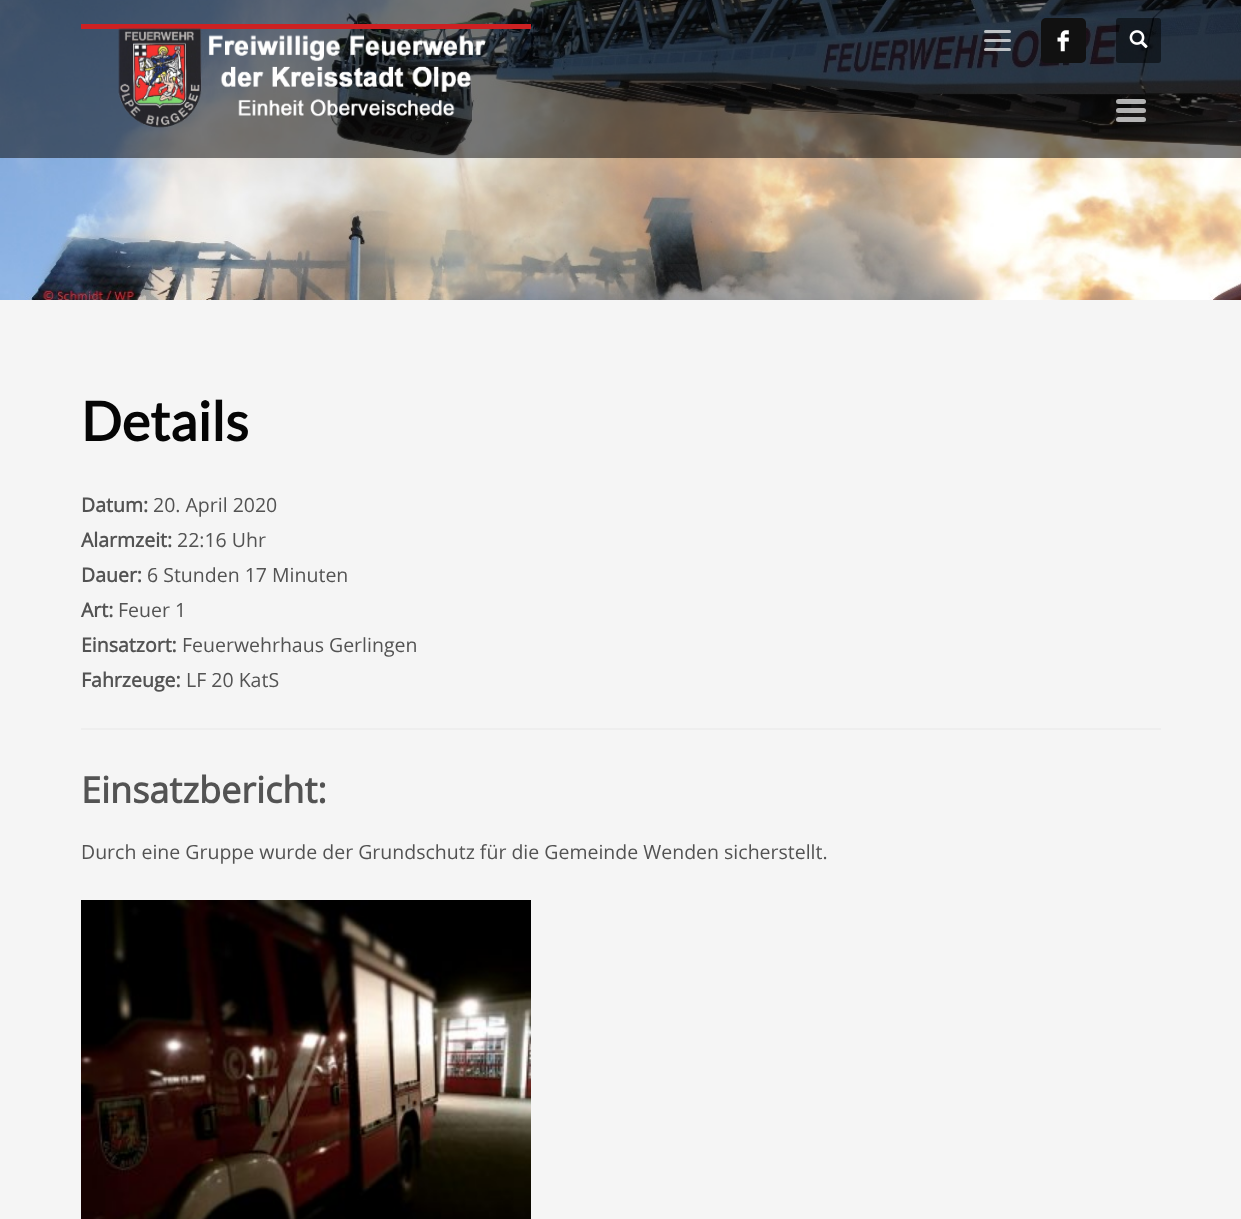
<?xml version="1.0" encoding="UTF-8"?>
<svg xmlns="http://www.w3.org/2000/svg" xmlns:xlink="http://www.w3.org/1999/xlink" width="1241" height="1219">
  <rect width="100%" height="100%" fill="#f5f5f5" />
  <image x="0" y="0" width="1241" height="300" xlink:href="image1.png" />
  <rect width="1241" height="158" fill="#000000" fill-opacity="0.5" />
  <rect x="81" y="24" width="450" height="5" fill="#cd2122" />
  <image x="118" y="28" width="368" height="100" xlink:href="image2.png" />
  <rect x="984" y="48" width="27" height="3" rx="1.5" fill="#ffffff" fill-opacity="0.7" />
  <rect x="984" y="39" width="27" height="3" rx="1.5" fill="#ffffff" fill-opacity="0.7" />
  <rect x="984" y="30" width="27" height="3" rx="1.5" fill="#ffffff" fill-opacity="0.7" />
  <rect x="1041" y="18" width="45" height="45" rx="5" fill="#111111" />
  <image x="1057" y="30" width="12" height="22" xlink:href="image3.png" />
  <rect x="1116" y="18" width="45" height="45" rx="3" fill="#000000" fill-opacity="0.5" />
  <image x="1129" y="30" width="19" height="19" xlink:href="image4.png" />
  <rect x="1116" y="99" width="30" height="5" rx="2.5" fill="#ffffff" fill-opacity="0.68" />
  <rect x="1116" y="108" width="30" height="5" rx="2.5" fill="#ffffff" fill-opacity="0.68" />
  <rect x="1116" y="117" width="30" height="5" rx="2.5" fill="#ffffff" fill-opacity="0.68" />
  <rect x="81" y="728" width="1080" height="2" fill="#eeeeee" />
  <image x="81" y="900" width="450" height="319" xlink:href="image5.png" />
  <text x="81" y="441" style="font-family: Lato; font-size: 54px; font-weight: bold; fill: #050505">Details</text>
  <text x="81" y="512" style="font-family: Open Sans; font-size: 19.5px; font-weight: bold; fill: #535353">Datum:</text>
  <text x="153" y="512" style="font-family: Open Sans; font-size: 19.5px; fill: #535353">20. April 2020</text>
  <text x="81" y="547" style="font-family: Open Sans; font-size: 19.5px; font-weight: bold; fill: #535353">Alarmzeit:</text>
  <text x="177" y="547" style="font-family: Open Sans; font-size: 19.5px; fill: #535353">22:16 Uhr</text>
  <text x="81" y="582" style="font-family: Open Sans; font-size: 19.5px; font-weight: bold; fill: #535353">Dauer:</text>
  <text x="147" y="582" style="font-family: Open Sans; font-size: 19.5px; fill: #535353">6 Stunden 17 Minuten</text>
  <text x="81" y="617" style="font-family: Open Sans; font-size: 19.5px; font-weight: bold; fill: #535353">Art:</text>
  <text x="118" y="617" style="font-family: Open Sans; font-size: 19.5px; fill: #535353">Feuer 1</text>
  <text x="81" y="652" style="font-family: Open Sans; font-size: 19.5px; font-weight: bold; fill: #535353">Einsatzort:</text>
  <text x="182" y="652" style="font-family: Open Sans; font-size: 19.5px; fill: #535353">Feuerwehrhaus Gerlingen</text>
  <text x="81" y="687" style="font-family: Open Sans; font-size: 19.5px; font-weight: bold; fill: #535353">Fahrzeuge:</text>
  <text x="186" y="687" style="font-family: Open Sans; font-size: 19.5px; fill: #535353">LF 20 KatS</text>
  <text x="81" y="803" style="font-family: Open Sans; font-size: 36px; font-weight: bold; fill: #535353">Einsatzbericht:</text>
  <text x="81" y="859" style="font-family: Open Sans; font-size: 19.5px; fill: #535353">Durch eine Gruppe wurde der Grundschutz für die Gemeinde Wenden sicherstellt.</text>
</svg>
